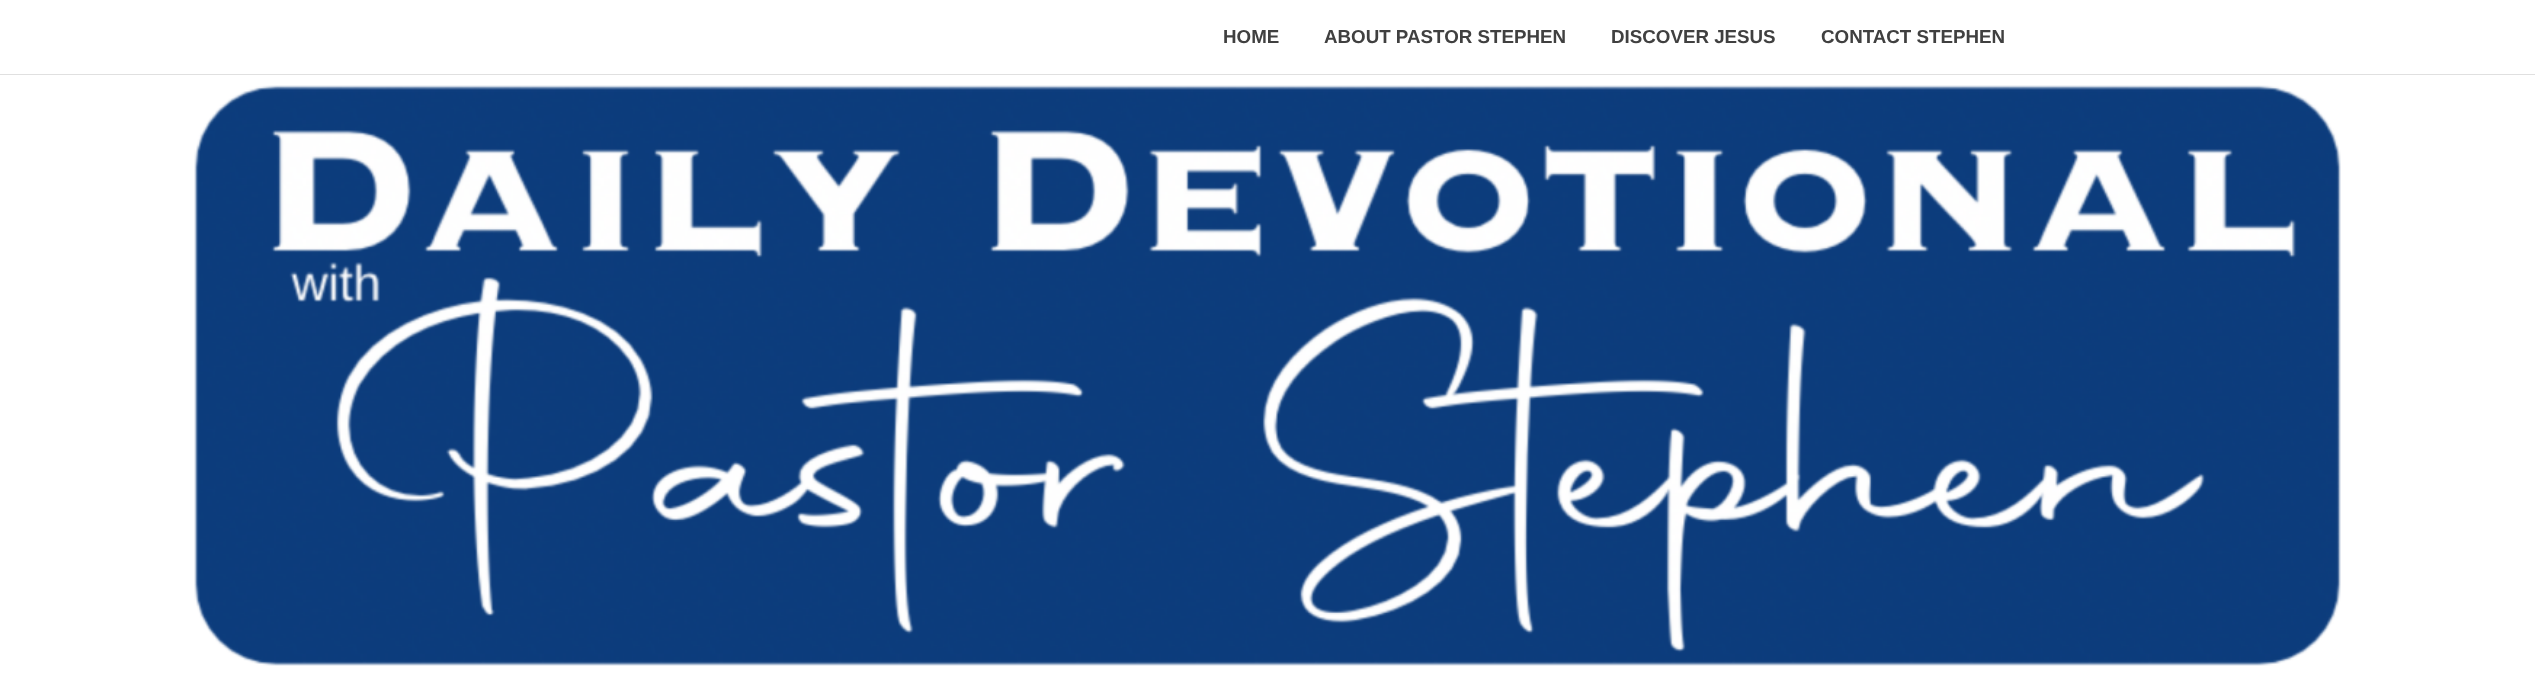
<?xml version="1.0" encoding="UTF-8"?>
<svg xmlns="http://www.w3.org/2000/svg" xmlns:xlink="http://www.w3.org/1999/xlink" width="2535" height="692">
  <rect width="100%" height="100%" fill="#ffffff" />
  <rect y="74" width="2535" height="1" fill="#e0e0e0" />
  <image x="194" y="85" width="2147" height="581" xlink:href="image1.png" />
  <text x="1223" y="43" style="font-family: Liberation Sans; font-size: 18.75px; font-weight: bold; fill: #404040">HOME</text>
  <text x="1324" y="43" style="font-family: Liberation Sans; font-size: 18.75px; font-weight: bold; fill: #404040">ABOUT PASTOR STEPHEN</text>
  <text x="1611" y="43" style="font-family: Liberation Sans; font-size: 18.75px; font-weight: bold; fill: #404040">DISCOVER JESUS</text>
  <text x="1821" y="43" style="font-family: Liberation Sans; font-size: 18.75px; font-weight: bold; fill: #404040">CONTACT STEPHEN</text>
</svg>
